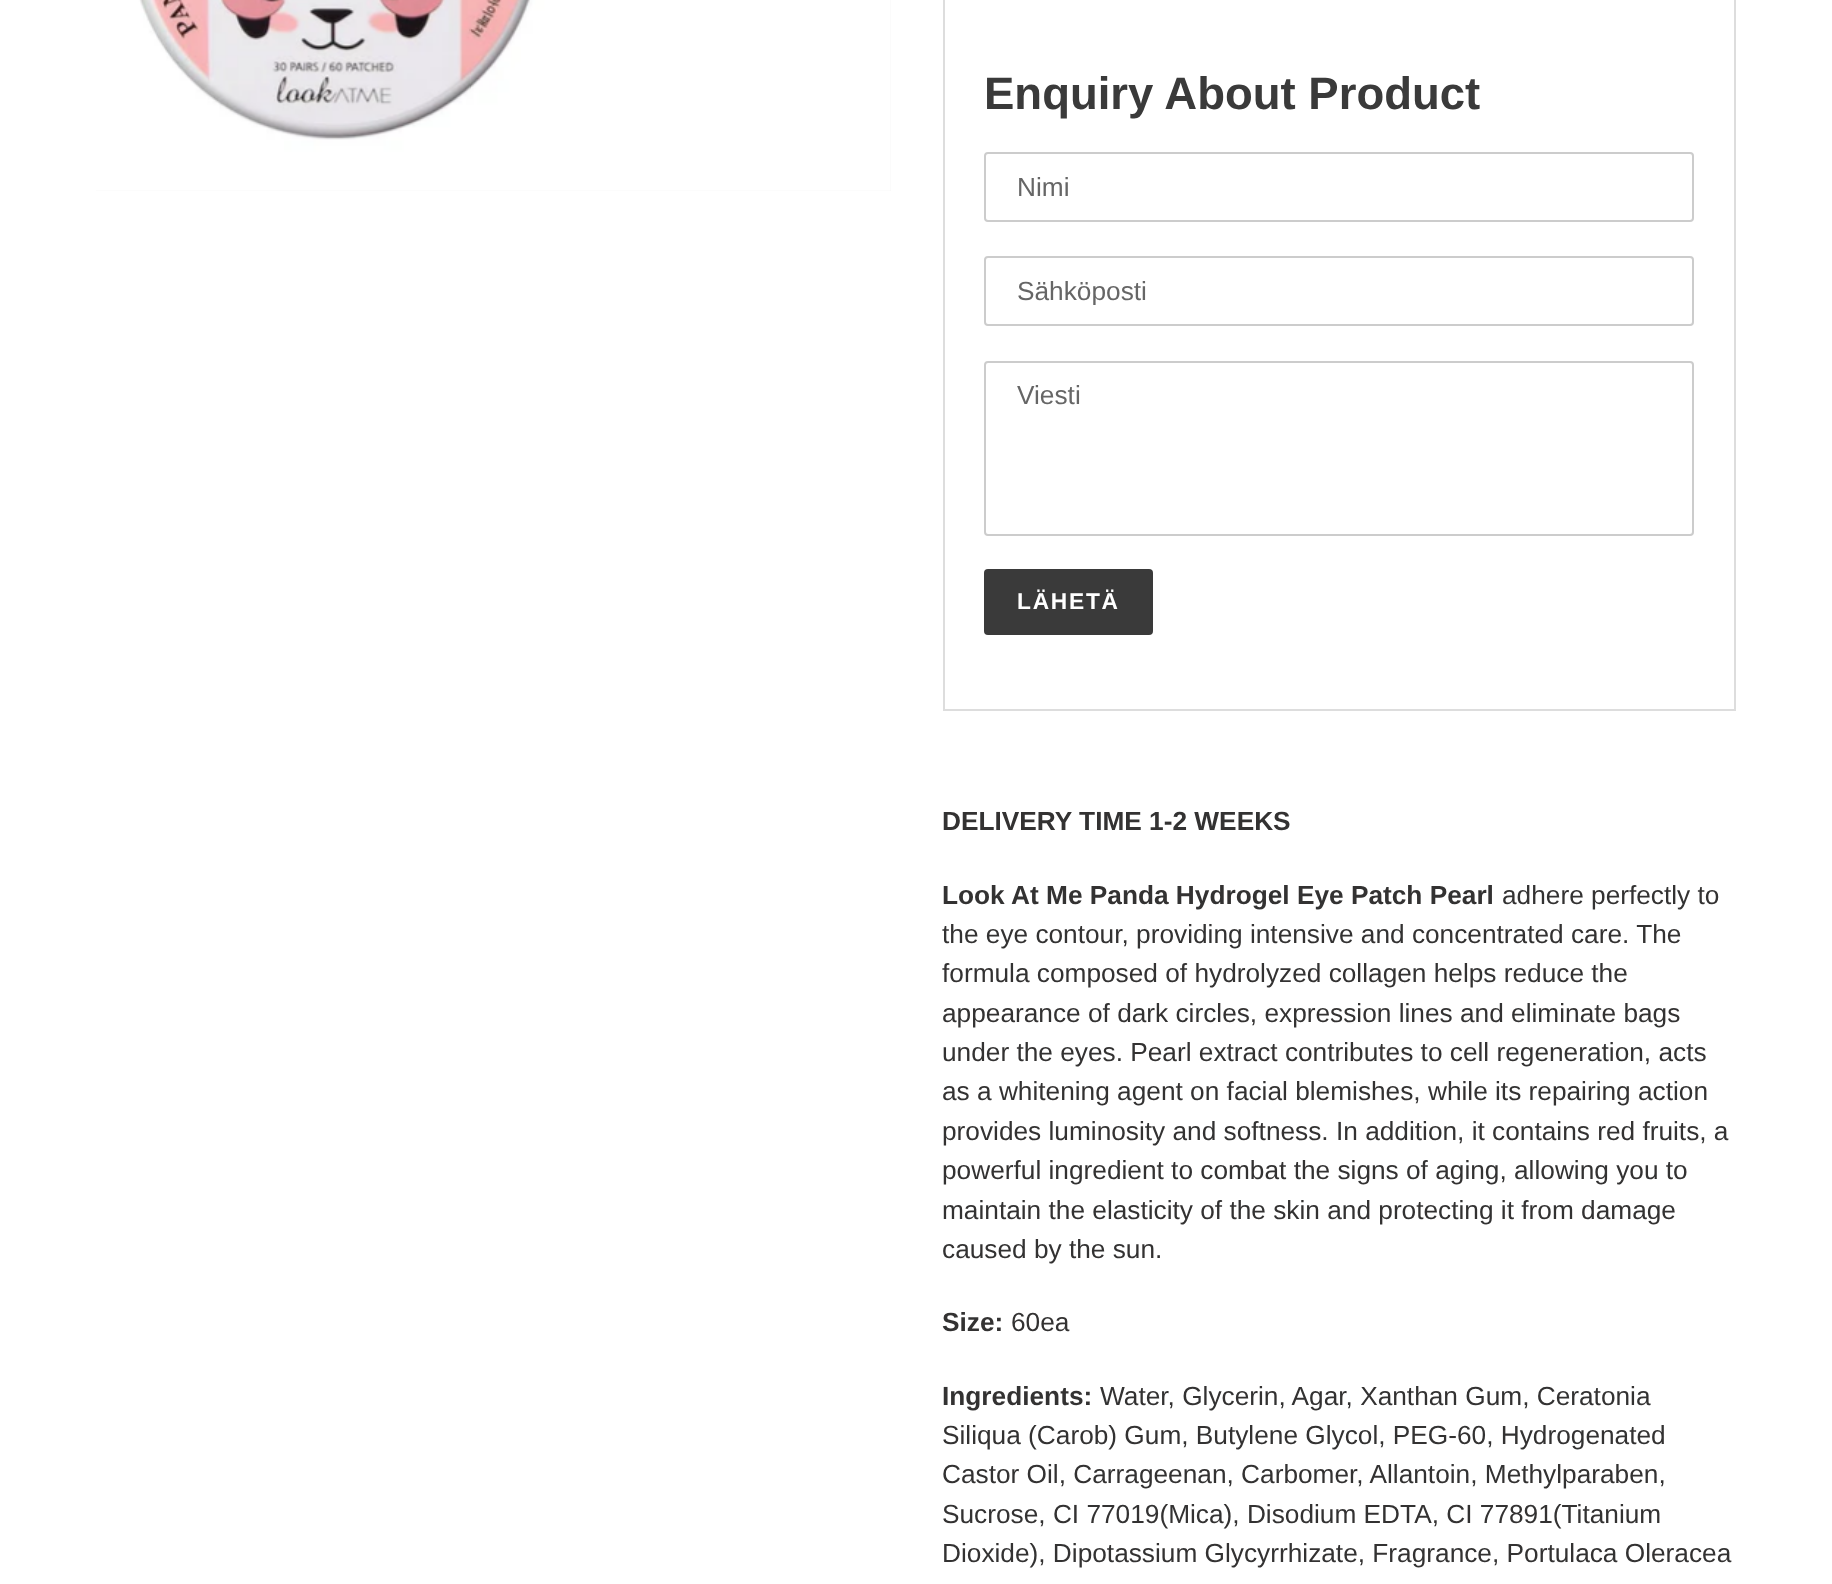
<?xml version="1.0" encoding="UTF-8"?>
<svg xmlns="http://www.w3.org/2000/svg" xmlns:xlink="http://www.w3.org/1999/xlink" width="1832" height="1584">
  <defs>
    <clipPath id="clip1"><rect x="1017" y="275" width="644" height="30" /></clipPath>
  </defs>
  <rect width="100%" height="100%" fill="#ffffff" />
  <rect x="96" width="795" height="191" fill="#f4f4f4" />
  <image x="96" y="0" width="795" height="191" xlink:href="image1.png" />
  <rect x="944" y="-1" width="791" height="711" fill="none" stroke="#dddddd" stroke-width="2" />
  <rect x="985" y="153" width="708" height="68" rx="3" fill="none" stroke="#cccccc" stroke-width="2" />
  <rect x="985" y="257" width="708" height="68" rx="3" fill="none" stroke="#cccccc" stroke-width="2" />
  <rect x="985" y="362" width="708" height="173" rx="3" fill="none" stroke="#cccccc" stroke-width="2" />
  <rect x="984" y="569" width="169" height="66" rx="4" fill="#3a3a3a" />
  <text x="984" y="109" style="font-family: Liberation Sans; font-size: 45.5px; font-weight: bold; fill: #3a3a3a">Enquiry About Product</text>
  <text x="1017" y="196" style="font-family: Liberation Sans; font-size: 26.25px; fill: #666666">Nimi</text>
  <g clip-path="url(#clip1)">
    <text x="1017" y="300" style="font-family: Liberation Sans; font-size: 26.25px; fill: #666666">Sähköposti</text>
  </g>
  <text x="1017" y="404" style="font-family: Liberation Sans; font-size: 26.25px; fill: #666666">Viesti</text>
  <text x="1017" y="609" style="font-family: Liberation Sans; font-size: 22.75px; font-weight: bold; letter-spacing: 1.75px; fill: #ffffff">LÄHETÄ</text>
  <text x="942" y="830" style="font-family: Liberation Sans; font-size: 26.25px; font-weight: bold; fill: #333232">DELIVERY TIME 1-2 WEEKS</text>
  <text x="942" y="904" style="font-family: Liberation Sans; font-size: 26.25px; font-weight: bold; fill: #333232">Look At Me Panda Hydrogel Eye Patch Pearl</text>
  <text x="1502" y="904" style="font-family: Liberation Sans; font-size: 26.25px; fill: #333232">adhere perfectly to</text>
  <text x="942" y="943" style="font-family: Liberation Sans; font-size: 26.25px; fill: #333232">the eye contour, providing intensive and concentrated care. The</text>
  <text x="942" y="982" style="font-family: Liberation Sans; font-size: 26.25px; fill: #333232">formula composed of hydrolyzed collagen helps reduce the</text>
  <text x="942" y="1022" style="font-family: Liberation Sans; font-size: 26.25px; fill: #333232">appearance of dark circles, expression lines and eliminate bags</text>
  <text x="942" y="1061" style="font-family: Liberation Sans; font-size: 26.25px; fill: #333232">under the eyes. Pearl extract contributes to cell regeneration, acts</text>
  <text x="942" y="1100" style="font-family: Liberation Sans; font-size: 26.25px; fill: #333232">as a whitening agent on facial blemishes, while its repairing action</text>
  <text x="942" y="1140" style="font-family: Liberation Sans; font-size: 26.25px; fill: #333232">provides luminosity and softness. In addition, it contains red fruits, a</text>
  <text x="942" y="1179" style="font-family: Liberation Sans; font-size: 26.25px; fill: #333232">powerful ingredient to combat the signs of aging, allowing you to</text>
  <text x="942" y="1219" style="font-family: Liberation Sans; font-size: 26.25px; fill: #333232">maintain the elasticity of the skin and protecting it from damage</text>
  <text x="942" y="1258" style="font-family: Liberation Sans; font-size: 26.25px; fill: #333232">caused by the sun.</text>
  <text x="942" y="1331" style="font-family: Liberation Sans; font-size: 26.25px; font-weight: bold; fill: #333232">Size:</text>
  <text x="1011" y="1331" style="font-family: Liberation Sans; font-size: 26.25px; fill: #333232">60ea</text>
  <text x="942" y="1405" style="font-family: Liberation Sans; font-size: 26.25px; font-weight: bold; fill: #333232">Ingredients:</text>
  <text x="1100" y="1405" style="font-family: Liberation Sans; font-size: 26.25px; fill: #333232">Water, Glycerin, Agar, Xanthan Gum, Ceratonia</text>
  <text x="942" y="1444" style="font-family: Liberation Sans; font-size: 26.25px; fill: #333232">Siliqua (Carob) Gum, Butylene Glycol, PEG-60, Hydrogenated</text>
  <text x="942" y="1483" style="font-family: Liberation Sans; font-size: 26.25px; fill: #333232">Castor Oil, Carrageenan, Carbomer, Allantoin, Methylparaben,</text>
  <text x="942" y="1523" style="font-family: Liberation Sans; font-size: 26.25px; fill: #333232">Sucrose, CI 77019(Mica), Disodium EDTA, CI 77891(Titanium</text>
  <text x="942" y="1562" style="font-family: Liberation Sans; font-size: 26.25px; fill: #333232">Dioxide), Dipotassium Glycyrrhizate, Fragrance, Portulaca Oleracea</text>
</svg>
